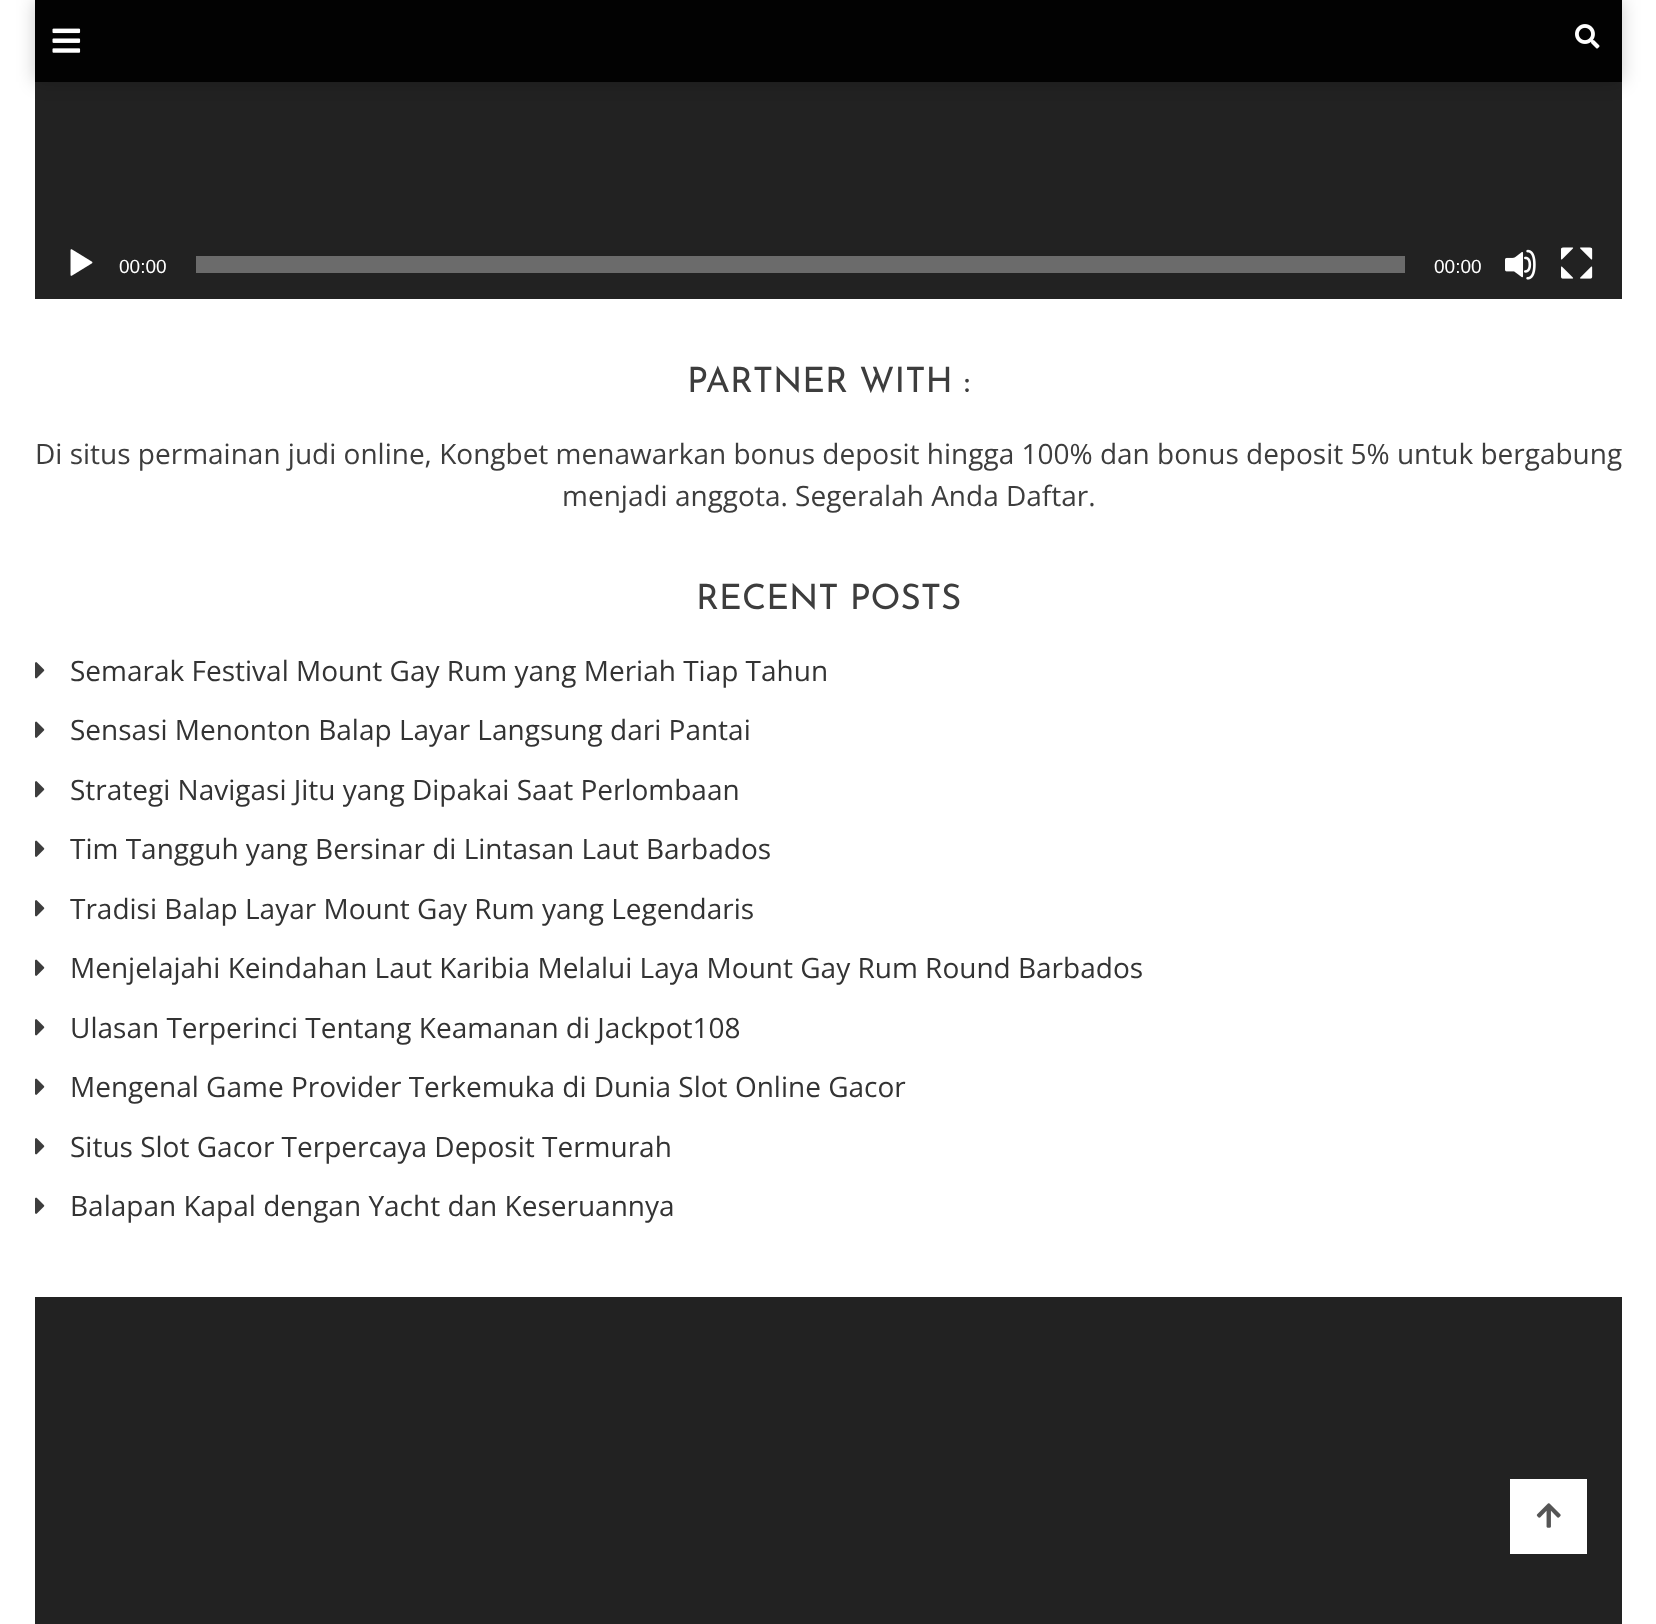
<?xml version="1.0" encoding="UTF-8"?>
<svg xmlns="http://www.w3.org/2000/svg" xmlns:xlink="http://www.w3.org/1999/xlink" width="1656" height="1624">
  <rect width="100%" height="100%" fill="#ffffff" />
  <rect x="35" y="82" width="1587" height="217" fill="#222222" />
  <rect x="35" width="1587" height="82" fill="#000000" fill-opacity="0.2" filter="blur(9px)" />
  <rect x="35" width="1587" height="82" fill="#020202" />
  <image x="52" y="28" width="29" height="25" xlink:href="image1.png" />
  <image x="1575" y="24" width="25" height="25" xlink:href="image2.png" />
  <image x="70" y="249" width="23" height="27" xlink:href="image3.png" />
  <rect x="196" y="256" width="1209" height="17" fill="#6b6b6b" />
  <image x="1505" y="249" width="31" height="31" xlink:href="image4.png" />
  <image x="1561" y="247" width="32" height="32" xlink:href="image5.png" />
  <image x="35" y="662" width="10" height="17" xlink:href="image6.png" />
  <image x="35" y="721" width="10" height="17" xlink:href="image7.png" />
  <image x="35" y="781" width="10" height="17" xlink:href="image6.png" />
  <image x="35" y="840" width="10" height="17" xlink:href="image7.png" />
  <image x="35" y="900" width="10" height="17" xlink:href="image6.png" />
  <image x="35" y="959" width="10" height="17" xlink:href="image7.png" />
  <image x="35" y="1019" width="10" height="17" xlink:href="image6.png" />
  <image x="35" y="1078" width="10" height="17" xlink:href="image7.png" />
  <image x="35" y="1138" width="10" height="17" xlink:href="image6.png" />
  <image x="35" y="1197" width="10" height="17" xlink:href="image7.png" />
  <rect x="35" y="1297" width="1587" height="327" fill="#222222" />
  <rect x="1510" y="1479" width="77" height="75" fill="#ffffff" />
  <image x="1536" y="1503" width="25" height="25" xlink:href="image8.png" />
  <text x="119" y="273" style="font-family: Liberation Sans; font-size: 19px; fill: #ffffff">00:00</text>
  <text x="1434" y="273" style="font-family: Liberation Sans; font-size: 19px; fill: #ffffff">00:00</text>
  <text x="687" y="392" style="font-family: Josefin Sans; font-size: 35px; font-weight: 100; fill: #3d3d3d">PARTNER WITH :</text>
  <text x="35" y="464" style="font-family: Open Sans; font-size: 28px; fill: #3d3d3d">Di situs permainan judi online, Kongbet menawarkan bonus deposit hingga 100% dan bonus deposit 5% untuk bergabung</text>
  <text x="562" y="506" style="font-family: Open Sans; font-size: 28px; fill: #3d3d3d">menjadi anggota. Segeralah Anda Daftar.</text>
  <text x="696" y="609" style="font-family: Josefin Sans; font-size: 35px; font-weight: 100; fill: #3d3d3d">RECENT POSTS</text>
  <text x="70" y="681" style="font-family: Open Sans; font-size: 28px; fill: #333333">Semarak Festival Mount Gay Rum yang Meriah Tiap Tahun</text>
  <text x="70" y="740" style="font-family: Open Sans; font-size: 28px; fill: #333333">Sensasi Menonton Balap Layar Langsung dari Pantai</text>
  <text x="70" y="800" style="font-family: Open Sans; font-size: 28px; fill: #333333">Strategi Navigasi Jitu yang Dipakai Saat Perlombaan</text>
  <text x="70" y="859" style="font-family: Open Sans; font-size: 28px; fill: #333333">Tim Tangguh yang Bersinar di Lintasan Laut Barbados</text>
  <text x="70" y="919" style="font-family: Open Sans; font-size: 28px; fill: #333333">Tradisi Balap Layar Mount Gay Rum yang Legendaris</text>
  <text x="70" y="978" style="font-family: Open Sans; font-size: 28px; fill: #333333">Menjelajahi Keindahan Laut Karibia Melalui Laya Mount Gay Rum Round Barbados</text>
  <text x="70" y="1038" style="font-family: Open Sans; font-size: 28px; fill: #333333">Ulasan Terperinci Tentang Keamanan di Jackpot108</text>
  <text x="70" y="1097" style="font-family: Open Sans; font-size: 28px; fill: #333333">Mengenal Game Provider Terkemuka di Dunia Slot Online Gacor</text>
  <text x="70" y="1157" style="font-family: Open Sans; font-size: 28px; fill: #333333">Situs Slot Gacor Terpercaya Deposit Termurah</text>
  <text x="70" y="1216" style="font-family: Open Sans; font-size: 28px; fill: #333333">Balapan Kapal dengan Yacht dan Keseruannya</text>
</svg>
